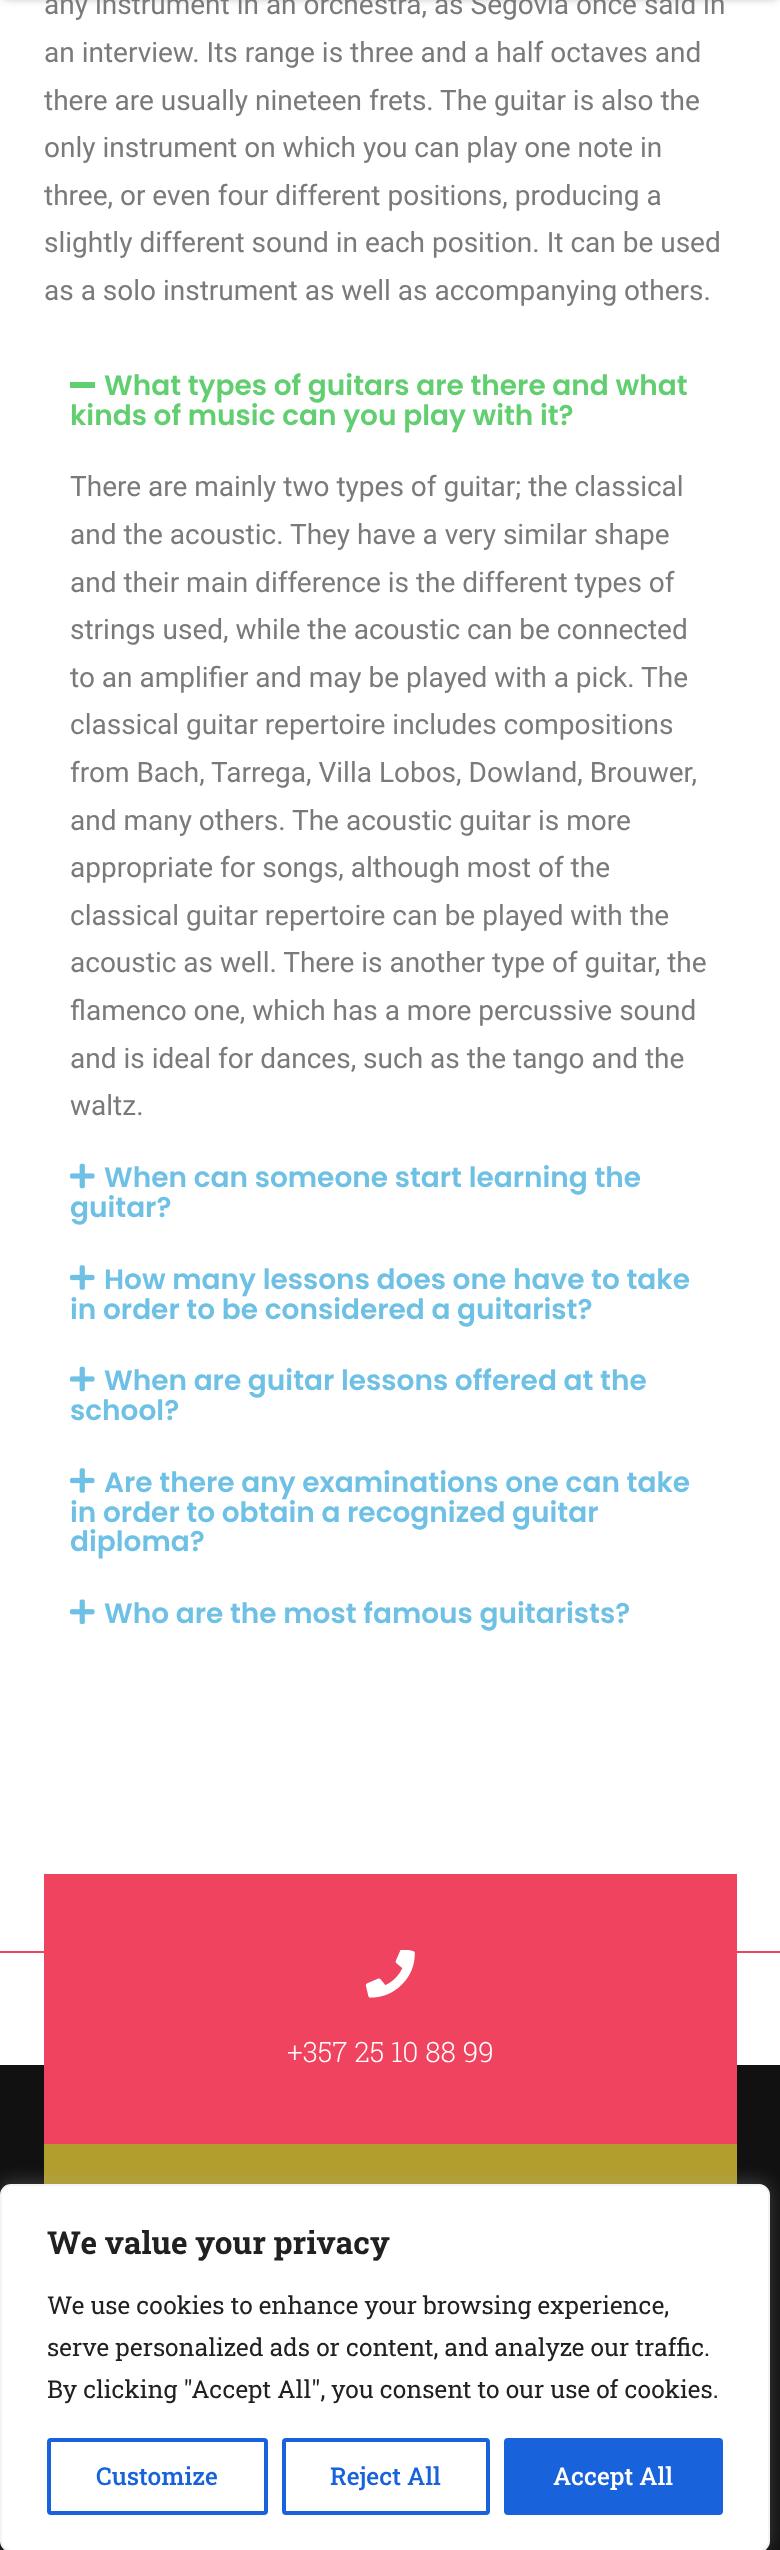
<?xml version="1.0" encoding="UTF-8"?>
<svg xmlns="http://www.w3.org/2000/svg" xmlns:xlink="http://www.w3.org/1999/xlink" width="780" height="2550">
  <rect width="100%" height="100%" fill="#ffffff" />
  <rect x="4" y="-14" width="773" height="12" fill="#2a2a2a" fill-opacity="0.4" filter="blur(4.5px)" />
  <rect x="70" y="382" width="25" height="6" fill="#61ce70" />
  <image x="70" y="1163" width="25" height="26" xlink:href="image1.png" />
  <image x="70" y="1265" width="25" height="25" xlink:href="image2.png" />
  <image x="70" y="1366" width="25" height="26" xlink:href="image1.png" />
  <image x="70" y="1468" width="25" height="25" xlink:href="image2.png" />
  <image x="70" y="1599" width="25" height="25" xlink:href="image3.png" />
  <rect y="2065" width="780" height="485" fill="#111111" />
  <rect y="1951" width="780" height="2" fill="#ef4360" />
  <rect x="44" y="1874" width="693" height="270" fill="#ef4360" />
  <image x="365" y="1950" width="50" height="48" xlink:href="image4.png" />
  <rect x="44" y="2144" width="693" height="40" fill="#b29e2d" />
  <rect y="2182" width="770" height="368" rx="11" fill="#acabab" fill-opacity="0.3" filter="blur(9px)" />
  <rect x="1" y="2185" width="768" height="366" rx="10" fill="#ffffff" stroke="#f4f4f4" stroke-width="2" />
  <rect x="49" y="2440" width="217" height="73" rx="2" fill="none" stroke="#1863dc" stroke-width="4" />
  <rect x="284" y="2440" width="204" height="73" rx="2" fill="none" stroke="#1863dc" stroke-width="4" />
  <rect x="506" y="2440" width="215" height="73" rx="2" fill="#1863dc" stroke="#1863dc" stroke-width="4" />
  <text x="44" y="14" style="font-family: Roboto; font-size: 28px; fill: #7a7a7a">any instrument in an orchestra, as Segovia once said in</text>
  <text x="44" y="62" style="font-family: Roboto; font-size: 28px; fill: #7a7a7a">an interview. Its range is three and a half octaves and</text>
  <text x="44" y="110" style="font-family: Roboto; font-size: 28px; fill: #7a7a7a">there are usually nineteen frets. The guitar is also the</text>
  <text x="44" y="157" style="font-family: Roboto; font-size: 28px; fill: #7a7a7a">only instrument on which you can play one note in</text>
  <text x="44" y="205" style="font-family: Roboto; font-size: 28px; fill: #7a7a7a">three, or even four different positions, producing a</text>
  <text x="44" y="252" style="font-family: Roboto; font-size: 28px; fill: #7a7a7a">slightly different sound in each position. It can be used</text>
  <text x="44" y="300" style="font-family: Roboto; font-size: 28px; fill: #7a7a7a">as a solo instrument as well as accompanying others.</text>
  <text x="104" y="395" style="font-family: Poppins; font-size: 28px; font-weight: 600; fill: #61ce70">What types of guitars are there and what</text>
  <text x="70" y="425" style="font-family: Poppins; font-size: 28px; font-weight: 600; fill: #61ce70">kinds of music can you play with it?</text>
  <text x="70" y="496" style="font-family: Roboto; font-size: 28px; fill: #7a7a7a">There are mainly two types of guitar; the classical</text>
  <text x="70" y="544" style="font-family: Roboto; font-size: 28px; fill: #7a7a7a">and the acoustic. They have a very similar shape</text>
  <text x="70" y="592" style="font-family: Roboto; font-size: 28px; fill: #7a7a7a">and their main difference is the different types of</text>
  <text x="70" y="639" style="font-family: Roboto; font-size: 28px; fill: #7a7a7a">strings used, while the acoustic can be connected</text>
  <text x="70" y="687" style="font-family: Roboto; font-size: 28px; fill: #7a7a7a">to an amplifier and may be played with a pick. The</text>
  <text x="70" y="734" style="font-family: Roboto; font-size: 28px; fill: #7a7a7a">classical guitar repertoire includes compositions</text>
  <text x="70" y="782" style="font-family: Roboto; font-size: 28px; fill: #7a7a7a">from Bach, Tarrega, Villa Lobos, Dowland, Brouwer,</text>
  <text x="70" y="830" style="font-family: Roboto; font-size: 28px; fill: #7a7a7a">and many others. The acoustic guitar is more</text>
  <text x="70" y="877" style="font-family: Roboto; font-size: 28px; fill: #7a7a7a">appropriate for songs, although most of the</text>
  <text x="70" y="925" style="font-family: Roboto; font-size: 28px; fill: #7a7a7a">classical guitar repertoire can be played with the</text>
  <text x="70" y="972" style="font-family: Roboto; font-size: 28px; fill: #7a7a7a">acoustic as well. There is another type of guitar, the</text>
  <text x="70" y="1020" style="font-family: Roboto; font-size: 28px; fill: #7a7a7a">flamenco one, which has a more percussive sound</text>
  <text x="70" y="1068" style="font-family: Roboto; font-size: 28px; fill: #7a7a7a">and is ideal for dances, such as the tango and the</text>
  <text x="70" y="1115" style="font-family: Roboto; font-size: 28px; fill: #7a7a7a">waltz.</text>
  <text x="104" y="1187" style="font-family: Poppins; font-size: 28px; font-weight: 600; fill: #6ec1e4">When can someone start learning the</text>
  <text x="70" y="1217" style="font-family: Poppins; font-size: 28px; font-weight: 600; fill: #6ec1e4">guitar?</text>
  <text x="104" y="1289" style="font-family: Poppins; font-size: 28px; font-weight: 600; fill: #6ec1e4">How many lessons does one have to take</text>
  <text x="70" y="1319" style="font-family: Poppins; font-size: 28px; font-weight: 600; fill: #6ec1e4">in order to be considered a guitarist?</text>
  <text x="104" y="1390" style="font-family: Poppins; font-size: 28px; font-weight: 600; fill: #6ec1e4">When are guitar lessons offered at the</text>
  <text x="70" y="1420" style="font-family: Poppins; font-size: 28px; font-weight: 600; fill: #6ec1e4">school?</text>
  <text x="104" y="1492" style="font-family: Poppins; font-size: 28px; font-weight: 600; fill: #6ec1e4">Are there any examinations one can take</text>
  <text x="70" y="1522" style="font-family: Poppins; font-size: 28px; font-weight: 600; fill: #6ec1e4">in order to obtain a recognized guitar</text>
  <text x="70" y="1551" style="font-family: Poppins; font-size: 28px; font-weight: 600; fill: #6ec1e4">diploma?</text>
  <text x="104" y="1623" style="font-family: Poppins; font-size: 28px; font-weight: 600; fill: #6ec1e4">Who are the most famous guitarists?</text>
  <text x="287" y="2062" style="font-family: Roboto Slab; font-size: 28px; font-weight: 300; fill: #ffffff">+357 25 10 88 99</text>
  <text x="47" y="2254" style="font-family: Roboto Slab; font-size: 31.5px; font-weight: bold; fill: #212121">We value your privacy</text>
  <text x="47" y="2314" style="font-family: Roboto Slab; font-size: 24.5px; fill: #212121">We use cookies to enhance your browsing experience,</text>
  <text x="47" y="2356" style="font-family: Roboto Slab; font-size: 24.5px; fill: #212121">serve personalized ads or content, and analyze our traffic.</text>
  <text x="47" y="2398" style="font-family: Roboto Slab; font-size: 24.5px; fill: #212121">By clicking "Accept All", you consent to our use of cookies.</text>
  <text x="96" y="2485" style="font-family: Roboto Slab; font-size: 24.5px; font-weight: 500; fill: #1863dc">Customize</text>
  <text x="330" y="2485" style="font-family: Roboto Slab; font-size: 24.5px; font-weight: 500; fill: #1863dc">Reject All</text>
  <text x="553" y="2485" style="font-family: Roboto Slab; font-size: 24.5px; font-weight: 500; fill: #ffffff">Accept All</text>
</svg>
